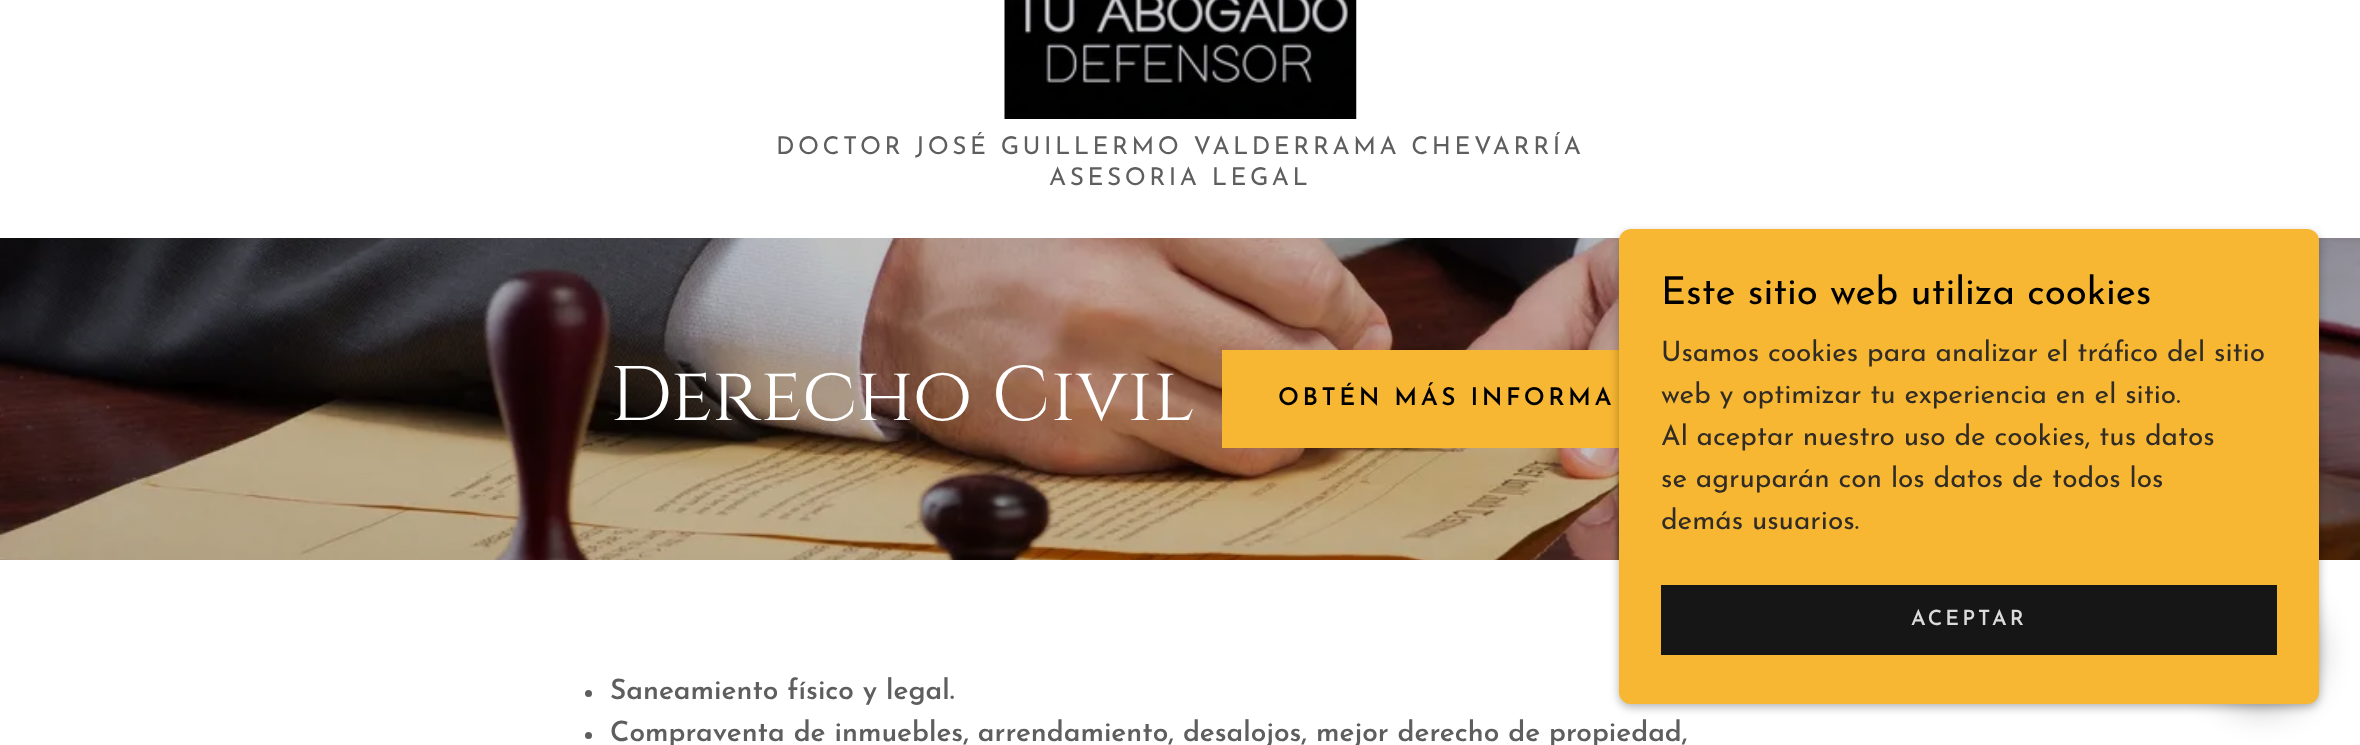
<?xml version="1.0" encoding="UTF-8"?>
<svg xmlns="http://www.w3.org/2000/svg" xmlns:xlink="http://www.w3.org/1999/xlink" width="2360" height="745">
  <rect width="100%" height="100%" fill="#ffffff" />
  <image x="1004" y="0" width="353" height="119" xlink:href="image1.png" />
  <image x="0" y="238" width="2360" height="322" xlink:href="image2.png" />
  <rect x="1222" y="350" width="397" height="98" fill="#f7b732" />
  <rect x="1619" y="233" width="700" height="474" rx="12" fill="#000000" fill-opacity="0.3" filter="blur(5px)" />
  <rect x="2205" y="595" width="114" height="114" rx="57" fill="#000000" fill-opacity="0.25" filter="blur(16px)" />
  <rect x="1619" y="229" width="700" height="475" rx="12" fill="#f7b732" />
  <rect x="1661" y="585" width="616" height="70" fill="#161616" />
  <circle cx="588.5" cy="693.5" r="3.5" fill="#5e5e5e" />
  <circle cx="588.5" cy="735.5" r="3.5" fill="#5e5e5e" />
  <text x="776" y="154" style="font-family: Josefin Sans; font-size: 24.5px; letter-spacing: 3.5px; fill: #5e5e5e">DOCTOR JOSÉ GUILLERMO VALDERRAMA CHEVARRÍA</text>
  <text x="1049" y="185" style="font-family: Josefin Sans; font-size: 24.5px; letter-spacing: 3.5px; fill: #5e5e5e">ASESORIA LEGAL</text>
  <text x="610" y="420" style="font-family: Cinzel; font-size: 77px; fill: #ffffff">Derecho Civil</text>
  <text x="1278" y="405" style="font-family: Josefin Sans; font-size: 24.5px; font-weight: 600; letter-spacing: 3.5px; fill: #000000">OBTÉN MÁS INFORMA</text>
  <text x="1661" y="304" style="font-family: Josefin Sans; font-size: 38.5px; fill: #000000">Este sitio web utiliza cookies</text>
  <text x="1661" y="361" style="font-family: Josefin Sans; font-size: 28px; fill: #312c26">Usamos cookies para analizar el tráfico del sitio</text>
  <text x="1661" y="403" style="font-family: Josefin Sans; font-size: 28px; fill: #312c26">web y optimizar tu experiencia en el sitio.</text>
  <text x="1661" y="445" style="font-family: Josefin Sans; font-size: 28px; fill: #312c26">Al aceptar nuestro uso de cookies, tus datos</text>
  <text x="1661" y="487" style="font-family: Josefin Sans; font-size: 28px; fill: #312c26">se agruparán con los datos de todos los</text>
  <text x="1661" y="529" style="font-family: Josefin Sans; font-size: 28px; fill: #312c26">demás usuarios.</text>
  <text x="1911" y="625" style="font-family: Josefin Sans; font-size: 21px; font-weight: 600; letter-spacing: 3px; fill: #dbdbdb">ACEPTAR</text>
  <text x="610" y="699" style="font-family: Josefin Sans; font-size: 28px; font-weight: 600; fill: #5e5e5e">Saneamiento físico y legal.</text>
  <text x="610" y="741" style="font-family: Josefin Sans; font-size: 28px; font-weight: 600; fill: #5e5e5e">Compraventa de inmuebles, arrendamiento, desalojos, mejor derecho de propiedad,</text>
</svg>
